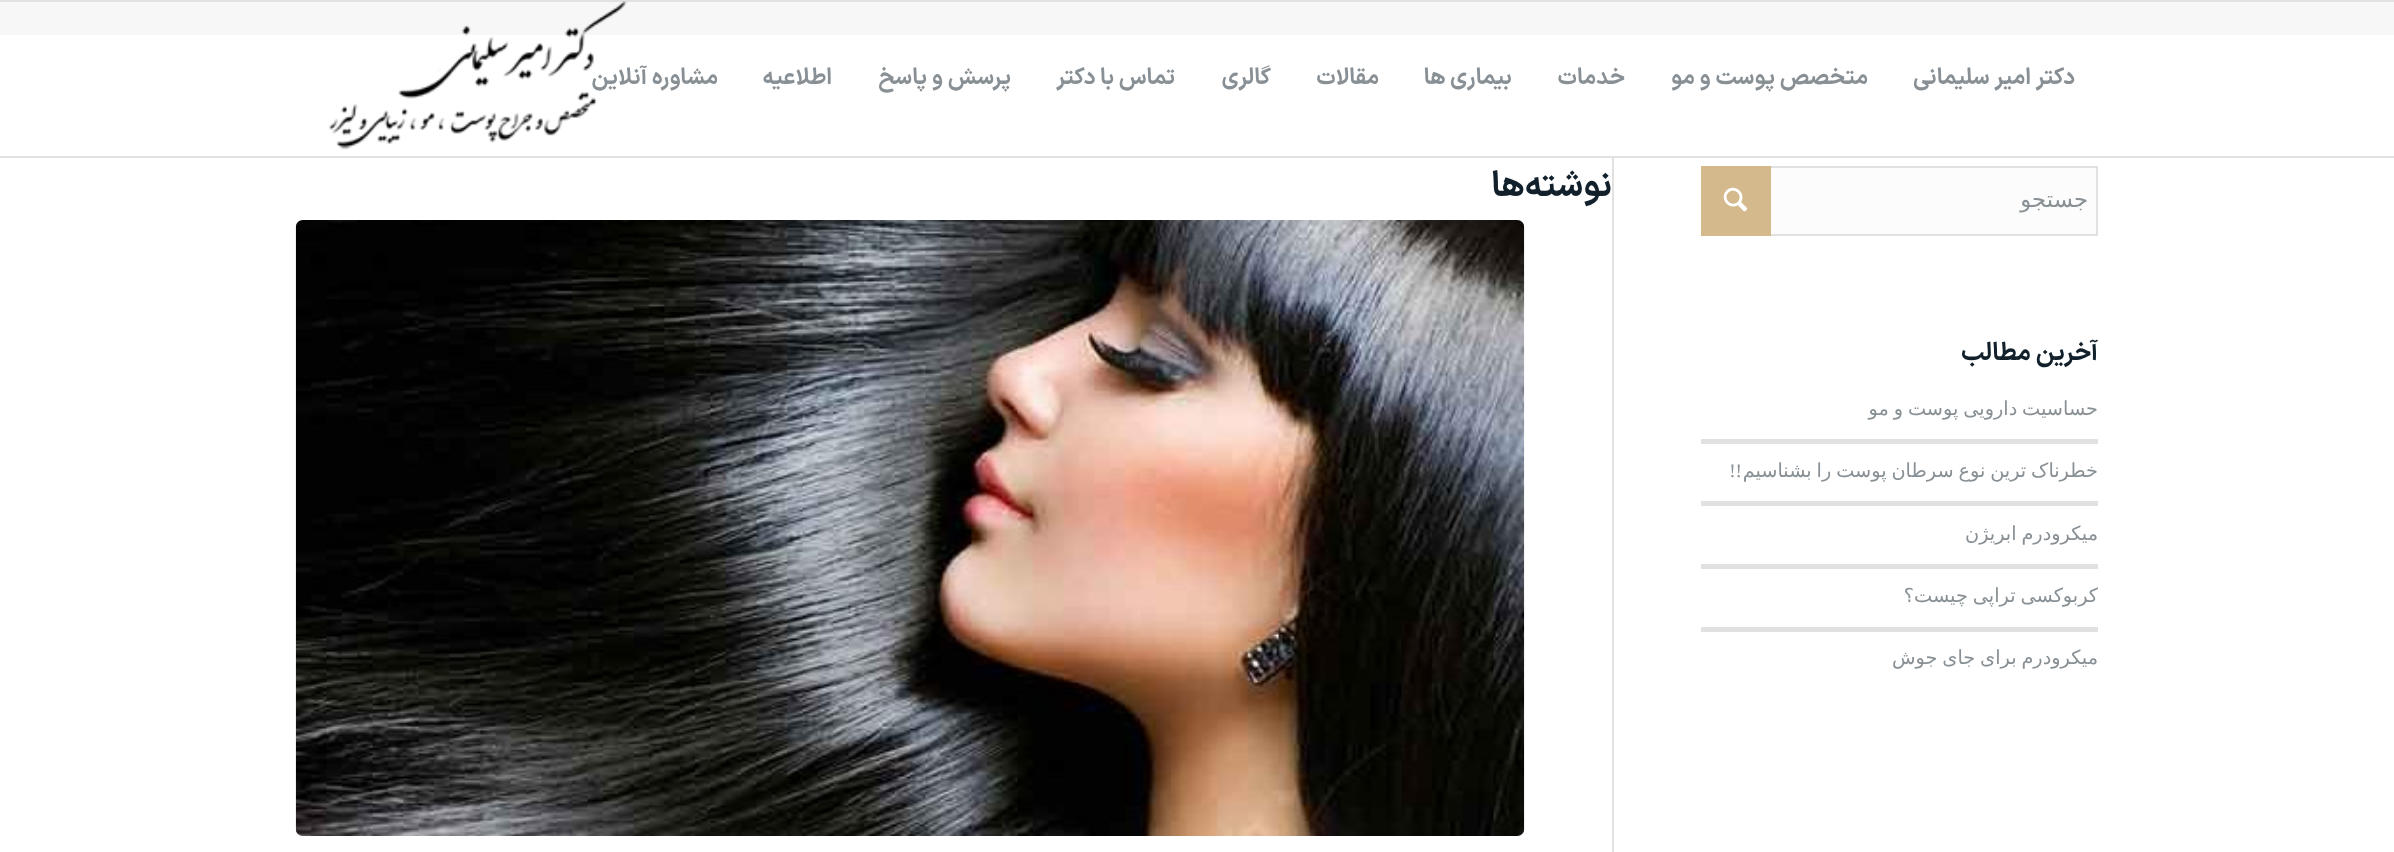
<?xml version="1.0" encoding="UTF-8"?>
<svg xmlns="http://www.w3.org/2000/svg" xmlns:xlink="http://www.w3.org/1999/xlink" width="2394" height="852">
  <defs>
    <clipPath id="clip1"><rect x="1614" y="37" width="484" height="791" /></clipPath>
  </defs>
  <rect width="100%" height="100%" fill="#ffffff" />
  <rect width="2394" height="2" fill="#e1e1e1" />
  <rect y="156" width="2394" height="2" fill="#e1e1e1" />
  <rect y="2" width="2394" height="33" fill="#f7f7f8" />
  <image x="328" y="1" width="299" height="149" xlink:href="image1.png" />
  <rect x="1612" y="158" width="2" height="694" fill="#e1e1e1" />
  <image x="295" y="220" width="1230" height="616" xlink:href="image2.png" />
  <rect x="1771" y="168" width="325" height="66" fill="#fcfcfc" />
  <rect x="1702" y="167" width="395" height="68" fill="none" stroke="#e1e1e1" stroke-width="2" />
  <rect x="1701" y="166" width="70" height="70" fill="#d4b98c" />
  <image x="1723" y="187" width="25" height="25" xlink:href="image3.png" />
  <rect x="1701" y="439" width="397" height="5" fill="#e1e1e1" />
  <rect x="1701" y="501" width="397" height="5" fill="#e1e1e1" />
  <rect x="1701" y="564" width="397" height="5" fill="#e1e1e1" />
  <rect x="1701" y="627" width="397" height="5" fill="#e1e1e1" />
  <text x="2075" y="84" style="font-family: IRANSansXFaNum; font-size: 22.75px; font-weight: bold; direction: rtl; fill: #889095">دکتر امیر سلیمانی</text>
  <text x="1868" y="84" style="font-family: IRANSansXFaNum; font-size: 22.75px; font-weight: bold; direction: rtl; fill: #889095">متخصص پوست و مو</text>
  <text x="1625" y="84" style="font-family: IRANSansXFaNum; font-size: 22.75px; font-weight: bold; direction: rtl; fill: #889095">خدمات</text>
  <text x="1512" y="84" style="font-family: IRANSansXFaNum; font-size: 22.75px; font-weight: bold; direction: rtl; fill: #889095">بیماری ها</text>
  <text x="1379" y="84" style="font-family: IRANSansXFaNum; font-size: 22.75px; font-weight: bold; direction: rtl; fill: #889095">مقالات</text>
  <text x="1271" y="84" style="font-family: IRANSansXFaNum; font-size: 22.75px; font-weight: bold; direction: rtl; fill: #889095">گالری</text>
  <text x="1175" y="84" style="font-family: IRANSansXFaNum; font-size: 22.75px; font-weight: bold; direction: rtl; fill: #889095">تماس با دکتر</text>
  <text x="1011" y="84" style="font-family: IRANSansXFaNum; font-size: 22.75px; font-weight: bold; direction: rtl; fill: #889095">پرسش و پاسخ</text>
  <text x="832" y="84" style="font-family: IRANSansXFaNum; font-size: 22.75px; font-weight: bold; direction: rtl; fill: #889095">اطلاعیه</text>
  <text x="718" y="84" style="font-family: IRANSansXFaNum; font-size: 22.75px; font-weight: bold; direction: rtl; fill: #889095">مشاوره آنلاین</text>
  <text x="1612" y="196" style="font-family: IRANSansXFaNum; font-size: 35px; font-weight: bold; direction: rtl; fill: #11202a">نوشته‌ها</text>
  <text x="2088" y="207" style="font-family: DejaVu Sans; font-size: 22.75px; direction: rtl; fill: #889095">جستجو</text>
  <text x="2098" y="360" style="font-family: IRANSansXFaNum; font-size: 25px; font-weight: bold; direction: rtl; fill: #11202a">آخرین مطالب</text>
  <g clip-path="url(#clip1)">
    <text x="2098" y="415" word-spacing="-1.25" style="font-family: DejaVu Sans; font-size: 19.3px; direction: rtl; fill: #889095">حساسیت دارویی پوست و مو</text>
    <text x="2098" y="477" word-spacing="-1.25" style="font-family: DejaVu Sans; font-size: 19.3px; direction: rtl; fill: #889095">خطرناک ترین نوع سرطان پوست را بشناسیم</text>
  </g>
  <text x="1742" y="477" style="font-family: Liberation Serif; font-size: 19.3px; direction: rtl; fill: #889095">!!</text>
  <text x="2098" y="540" word-spacing="-1.25" style="font-family: DejaVu Sans; font-size: 19.3px; direction: rtl; fill: #889095">میکرودرم ابریژن</text>
  <g clip-path="url(#clip1)">
    <text x="2098" y="602" word-spacing="-1.25" style="font-family: DejaVu Sans; font-size: 19.3px; direction: rtl; fill: #889095">کربوکسی تراپی چیست؟</text>
    <text x="2098" y="664" word-spacing="-1.25" style="font-family: DejaVu Sans; font-size: 19.3px; direction: rtl; fill: #889095">میکرودرم برای جای جوش</text>
  </g>
</svg>
